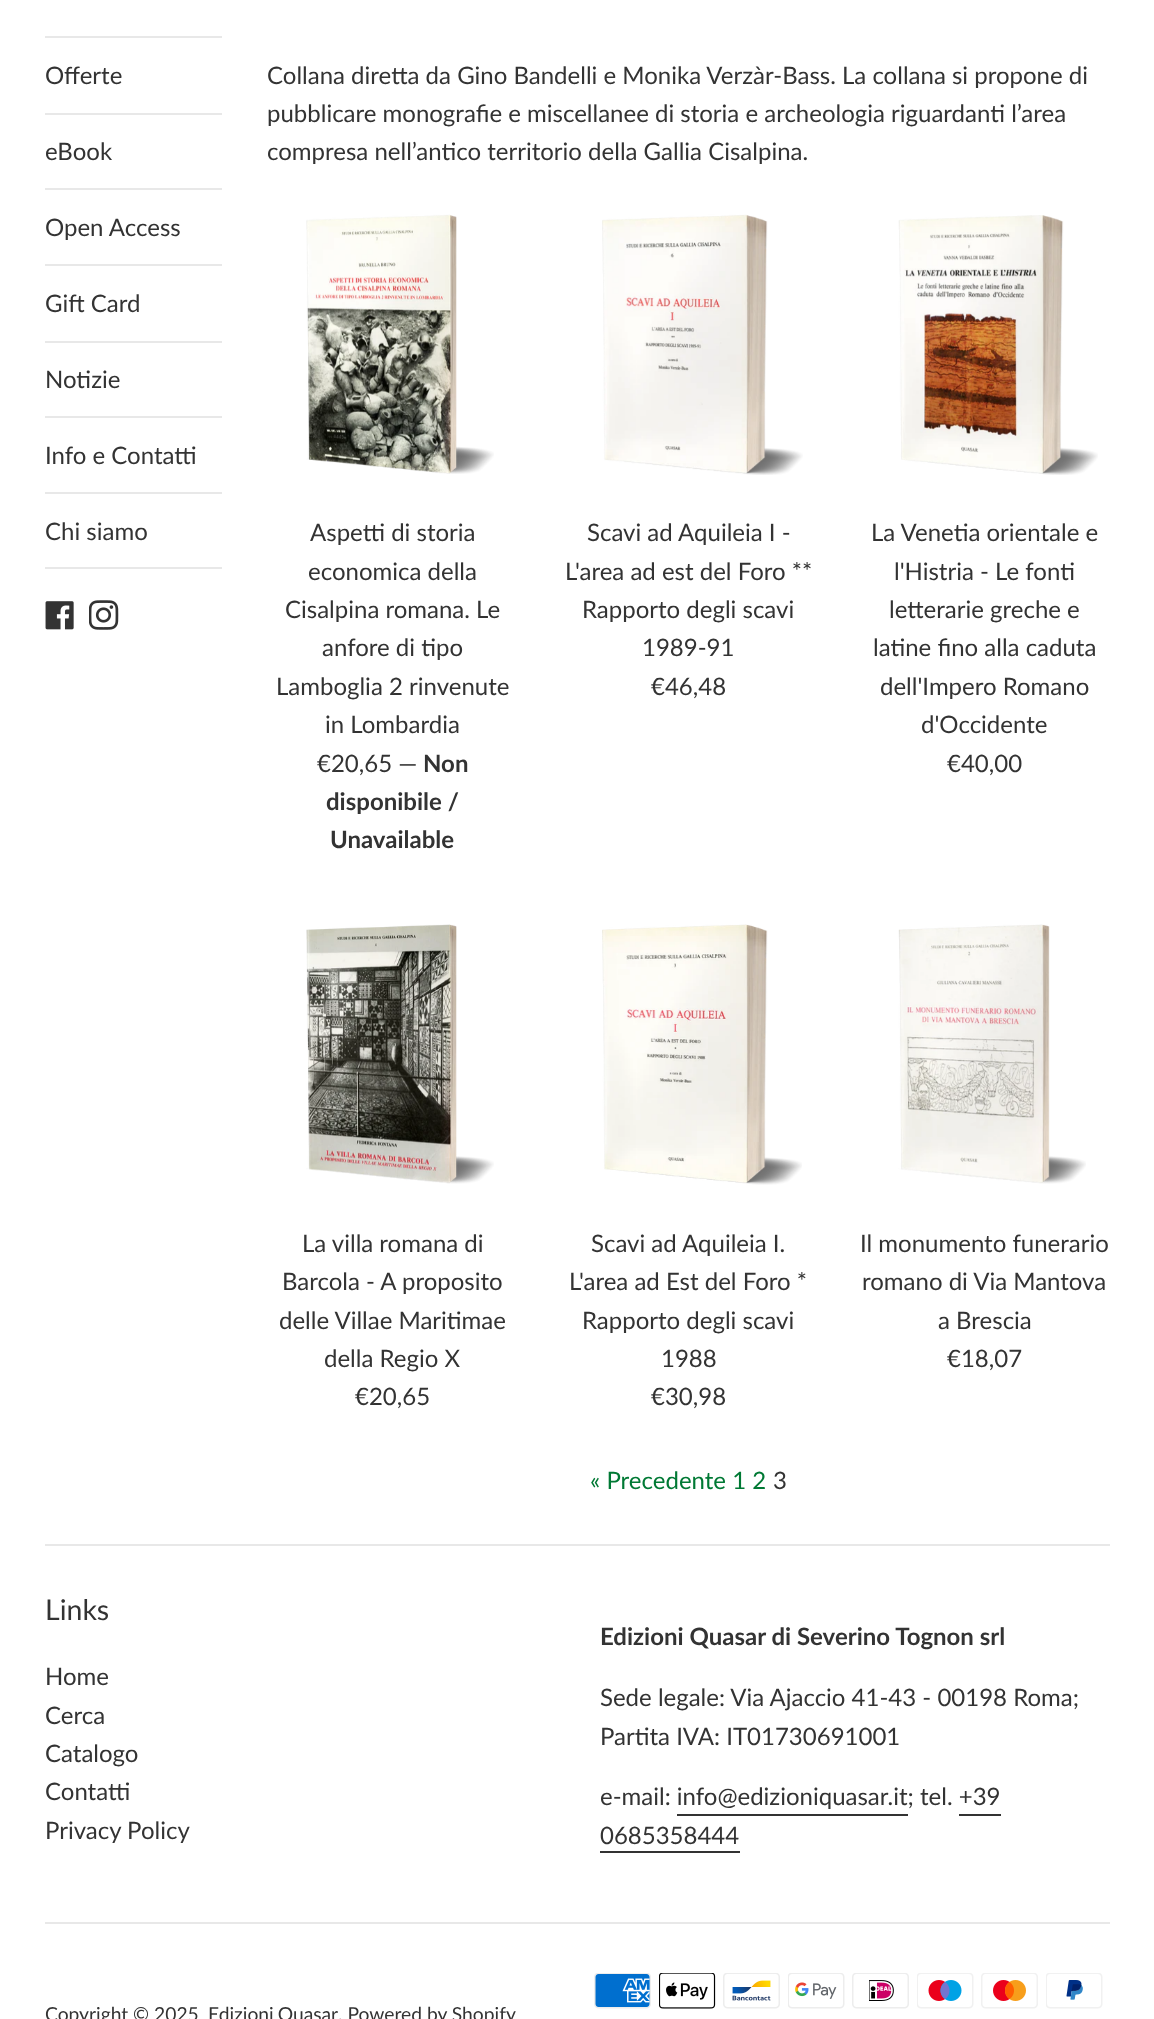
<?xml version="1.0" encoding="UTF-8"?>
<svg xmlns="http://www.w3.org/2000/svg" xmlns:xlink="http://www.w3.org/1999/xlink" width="1154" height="2019">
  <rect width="100%" height="100%" fill="#ffffff" />
  <rect x="45" y="36" width="177" height="2" fill="#e8e8e8" />
  <rect x="45" y="113" width="177" height="2" fill="#e8e8e8" />
  <rect x="45" y="188" width="177" height="2" fill="#e8e8e8" />
  <rect x="45" y="264" width="177" height="2" fill="#e8e8e8" />
  <rect x="45" y="341" width="177" height="2" fill="#e8e8e8" />
  <rect x="45" y="416" width="177" height="2" fill="#e8e8e8" />
  <rect x="45" y="492" width="177" height="2" fill="#e8e8e8" />
  <rect x="45" y="567" width="177" height="2" fill="#e8e8e8" />
  <image x="45" y="601" width="29" height="29" xlink:href="image1.png" />
  <image x="89" y="600" width="30" height="30" xlink:href="image2.png" />
  <image x="306" y="214" width="188" height="260" xlink:href="image3.png" />
  <image x="602" y="214" width="201" height="261" xlink:href="image4.png" />
  <image x="898" y="215" width="200" height="260" xlink:href="image5.png" />
  <image x="306" y="924" width="188" height="260" xlink:href="image6.png" />
  <image x="602" y="924" width="200" height="261" xlink:href="image7.png" />
  <image x="898" y="924" width="188" height="260" xlink:href="image8.png" />
  <rect x="45" y="1544" width="1065" height="2" fill="#e8e8e8" />
  <rect x="677" y="1814" width="231" height="2" fill="#333333" />
  <rect x="959" y="1814" width="42" height="2" fill="#333333" />
  <rect x="600" y="1851" width="140" height="2" fill="#333333" />
  <rect x="45" y="1922" width="1065" height="2" fill="#e8e8e8" />
  <image x="594" y="1973" width="57" height="36" xlink:href="image9.png" />
  <image x="659" y="1973" width="57" height="36" xlink:href="image10.png" />
  <image x="723" y="1973" width="57" height="36" xlink:href="image11.png" />
  <image x="788" y="1973" width="57" height="36" xlink:href="image12.png" />
  <image x="852" y="1973" width="57" height="36" xlink:href="image13.png" />
  <image x="917" y="1973" width="57" height="36" xlink:href="image14.png" />
  <image x="981" y="1973" width="57" height="36" xlink:href="image15.png" />
  <image x="1046" y="1973" width="57" height="36" xlink:href="image16.png" />
  <text x="45" y="84" style="font-family: Lato; font-size: 24px; fill: #333333">Offerte</text>
  <text x="45" y="160" style="font-family: Lato; font-size: 24px; fill: #333333">eBook</text>
  <text x="45" y="236" style="font-family: Lato; font-size: 24px; fill: #333333">Open Access</text>
  <text x="45" y="312" style="font-family: Lato; font-size: 24px; fill: #333333">Gift Card</text>
  <text x="45" y="388" style="font-family: Lato; font-size: 24px; fill: #333333">Notizie</text>
  <text x="45" y="464" style="font-family: Lato; font-size: 24px; fill: #333333">Info e Contatti</text>
  <text x="45" y="540" style="font-family: Lato; font-size: 24px; fill: #333333">Chi siamo</text>
  <text x="267" y="84" style="font-family: Lato; font-size: 24px; fill: #333333">Collana diretta da Gino Bandelli e Monika Verzàr-Bass. La collana si propone di</text>
  <text x="267" y="122" style="font-family: Lato; font-size: 24px; fill: #333333">pubblicare monografie e miscellanee di storia e archeologia riguardanti l’area</text>
  <text x="267" y="160" style="font-family: Lato; font-size: 24px; fill: #333333">compresa nell’antico territorio della Gallia Cisalpina.</text>
  <text x="310" y="541" style="font-family: Lato; font-size: 24px; fill: #333333">Aspetti di storia</text>
  <text x="308" y="580" style="font-family: Lato; font-size: 24px; fill: #333333">economica della</text>
  <text x="285" y="618" style="font-family: Lato; font-size: 24px; fill: #333333">Cisalpina romana. Le</text>
  <text x="322" y="656" style="font-family: Lato; font-size: 24px; fill: #333333">anfore di tipo</text>
  <text x="276" y="695" style="font-family: Lato; font-size: 24px; fill: #333333">Lamboglia 2 rinvenute</text>
  <text x="325" y="733" style="font-family: Lato; font-size: 24px; fill: #333333">in Lombardia</text>
  <text x="317" y="772" style="font-family: Lato; font-size: 24px; fill: #333333">€20,65 —</text>
  <text x="423" y="772" style="font-family: Lato; font-size: 24px; font-weight: bold; fill: #333333">Non</text>
  <text x="326" y="810" style="font-family: Lato; font-size: 24px; font-weight: bold; fill: #333333">disponibile /</text>
  <text x="330" y="848" style="font-family: Lato; font-size: 24px; font-weight: bold; fill: #333333">Unavailable</text>
  <text x="587" y="541" style="font-family: Lato; font-size: 24px; fill: #333333">Scavi ad Aquileia I -</text>
  <text x="565" y="580" style="font-family: Lato; font-size: 24px; fill: #333333">L'area ad est del Foro **</text>
  <text x="582" y="618" style="font-family: Lato; font-size: 24px; fill: #333333">Rapporto degli scavi</text>
  <text x="642" y="656" style="font-family: Lato; font-size: 24px; fill: #333333">1989-91</text>
  <text x="651" y="695" style="font-family: Lato; font-size: 24px; fill: #333333">€46,48</text>
  <text x="871" y="541" style="font-family: Lato; font-size: 24px; fill: #333333">La Venetia orientale e</text>
  <text x="894" y="580" style="font-family: Lato; font-size: 24px; fill: #333333">l'Histria - Le fonti</text>
  <text x="889" y="618" style="font-family: Lato; font-size: 24px; fill: #333333">letterarie greche e</text>
  <text x="873" y="656" style="font-family: Lato; font-size: 24px; fill: #333333">latine fino alla caduta</text>
  <text x="880" y="695" style="font-family: Lato; font-size: 24px; fill: #333333">dell'Impero Romano</text>
  <text x="921" y="733" style="font-family: Lato; font-size: 24px; fill: #333333">d'Occidente</text>
  <text x="947" y="772" style="font-family: Lato; font-size: 24px; fill: #333333">€40,00</text>
  <text x="302" y="1252" style="font-family: Lato; font-size: 24px; fill: #333333">La villa romana di</text>
  <text x="282" y="1290" style="font-family: Lato; font-size: 24px; fill: #333333">Barcola - A proposito</text>
  <text x="279" y="1329" style="font-family: Lato; font-size: 24px; fill: #333333">delle Villae Maritimae</text>
  <text x="324" y="1367" style="font-family: Lato; font-size: 24px; fill: #333333">della Regio X</text>
  <text x="355" y="1405" style="font-family: Lato; font-size: 24px; fill: #333333">€20,65</text>
  <text x="591" y="1252" style="font-family: Lato; font-size: 24px; fill: #333333">Scavi ad Aquileia I.</text>
  <text x="569" y="1290" style="font-family: Lato; font-size: 24px; fill: #333333">L'area ad Est del Foro *</text>
  <text x="582" y="1329" style="font-family: Lato; font-size: 24px; fill: #333333">Rapporto degli scavi</text>
  <text x="661" y="1367" style="font-family: Lato; font-size: 24px; fill: #333333">1988</text>
  <text x="651" y="1405" style="font-family: Lato; font-size: 24px; fill: #333333">€30,98</text>
  <text x="860" y="1252" style="font-family: Lato; font-size: 24px; fill: #333333">Il monumento funerario</text>
  <text x="862" y="1290" style="font-family: Lato; font-size: 24px; fill: #333333">romano di Via Mantova</text>
  <text x="938" y="1329" style="font-family: Lato; font-size: 24px; fill: #333333">a Brescia</text>
  <text x="947" y="1367" style="font-family: Lato; font-size: 24px; fill: #333333">€18,07</text>
  <text x="590" y="1489" style="font-family: Lato; font-size: 24px; fill: #007934">« Precedente 1 2</text>
  <text x="773" y="1489" style="font-family: Lato; font-size: 24px; fill: #333333">3</text>
  <text x="45" y="1620" style="font-family: Lato; font-size: 28.5px; fill: #333333">Links</text>
  <text x="45" y="1685" style="font-family: Lato; font-size: 24px; fill: #333333">Home</text>
  <text x="45" y="1724" style="font-family: Lato; font-size: 24px; fill: #333333">Cerca</text>
  <text x="45" y="1762" style="font-family: Lato; font-size: 24px; fill: #333333">Catalogo</text>
  <text x="45" y="1800" style="font-family: Lato; font-size: 24px; fill: #333333">Contatti</text>
  <text x="45" y="1839" style="font-family: Lato; font-size: 24px; fill: #333333">Privacy Policy</text>
  <text x="600" y="1645" style="font-family: Lato; font-size: 24px; font-weight: bold; fill: #333333">Edizioni Quasar di Severino Tognon srl</text>
  <text x="600" y="1706" style="font-family: Lato; font-size: 24px; fill: #333333">Sede legale: Via Ajaccio 41-43 - 00198 Roma;</text>
  <text x="600" y="1745" style="font-family: Lato; font-size: 24px; fill: #333333">Partita IVA: IT01730691001</text>
  <text x="600" y="1805" style="font-family: Lato; font-size: 24px; fill: #333333">e-mail: info@edizioniquasar.it; tel. +39</text>
  <text x="600" y="1844" style="font-family: Lato; font-size: 24px; fill: #333333">0685358444</text>
  <text x="45" y="2021" style="font-family: Lato; font-size: 19.25px; fill: #333333">Copyright © 2025</text>
  <text x="208" y="2021" word-spacing="-1" style="font-family: Lato; font-size: 19.25px; fill: #333333">Edizioni Quasar</text>
  <text x="338" y="2021" style="font-family: Lato; font-size: 19.25px; fill: #333333">. Powered by Shopify</text>
</svg>
